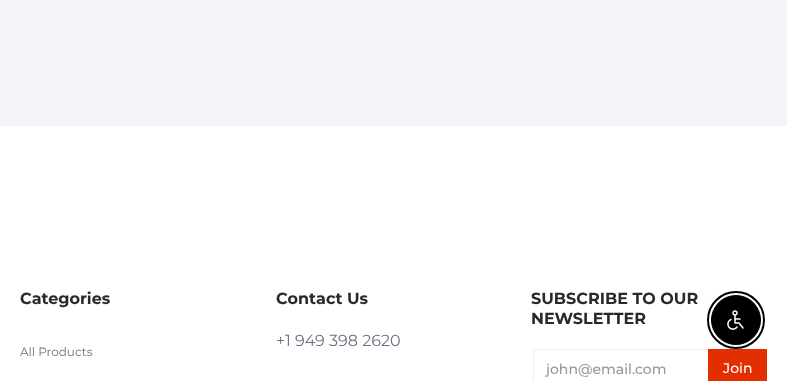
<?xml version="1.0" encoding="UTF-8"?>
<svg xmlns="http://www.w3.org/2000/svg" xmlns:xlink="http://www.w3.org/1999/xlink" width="787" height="381">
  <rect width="100%" height="100%" fill="#ffffff" />
  <rect width="787" height="126" fill="#f4f5fa" />
  <rect x="533.5" y="349.5" width="176" height="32" fill="none" stroke="#edeef4" />
  <rect x="708" y="349" width="59" height="32" fill="#e32e00" />
  <circle cx="736" cy="320" r="28" fill="none" stroke="#000000" stroke-width="2" />
  <circle cx="736" cy="320" r="24.5" fill="#000000" stroke="#000000" />
  <image x="727" y="310" width="17" height="20" xlink:href="image1.png" />
  <text x="20" y="304" style="font-family: Montserrat; font-size: 16px; font-weight: bold; fill: #292929">Categories</text>
  <text x="20" y="356" style="font-family: Montserrat; font-size: 12px; fill: #6b6f81">All Products</text>
  <text x="276" y="304" style="font-family: Montserrat; font-size: 16px; font-weight: bold; fill: #292929">Contact Us</text>
  <text x="276" y="346" style="font-family: Montserrat; font-size: 16px; fill: #6b6f81">+1 949 398 2620</text>
  <text x="531" y="304" style="font-family: Montserrat; font-size: 16px; font-weight: bold; fill: #292929">SUBSCRIBE TO OUR</text>
  <text x="531" y="324" style="font-family: Montserrat; font-size: 16px; font-weight: bold; fill: #292929">NEWSLETTER</text>
  <text x="546" y="374" style="font-family: Montserrat; font-size: 14px; font-weight: 500; fill: #989898">john@email.com</text>
  <text x="723" y="373" style="font-family: Montserrat; font-size: 14px; font-weight: 500; fill: #ffffff">Join</text>
</svg>
